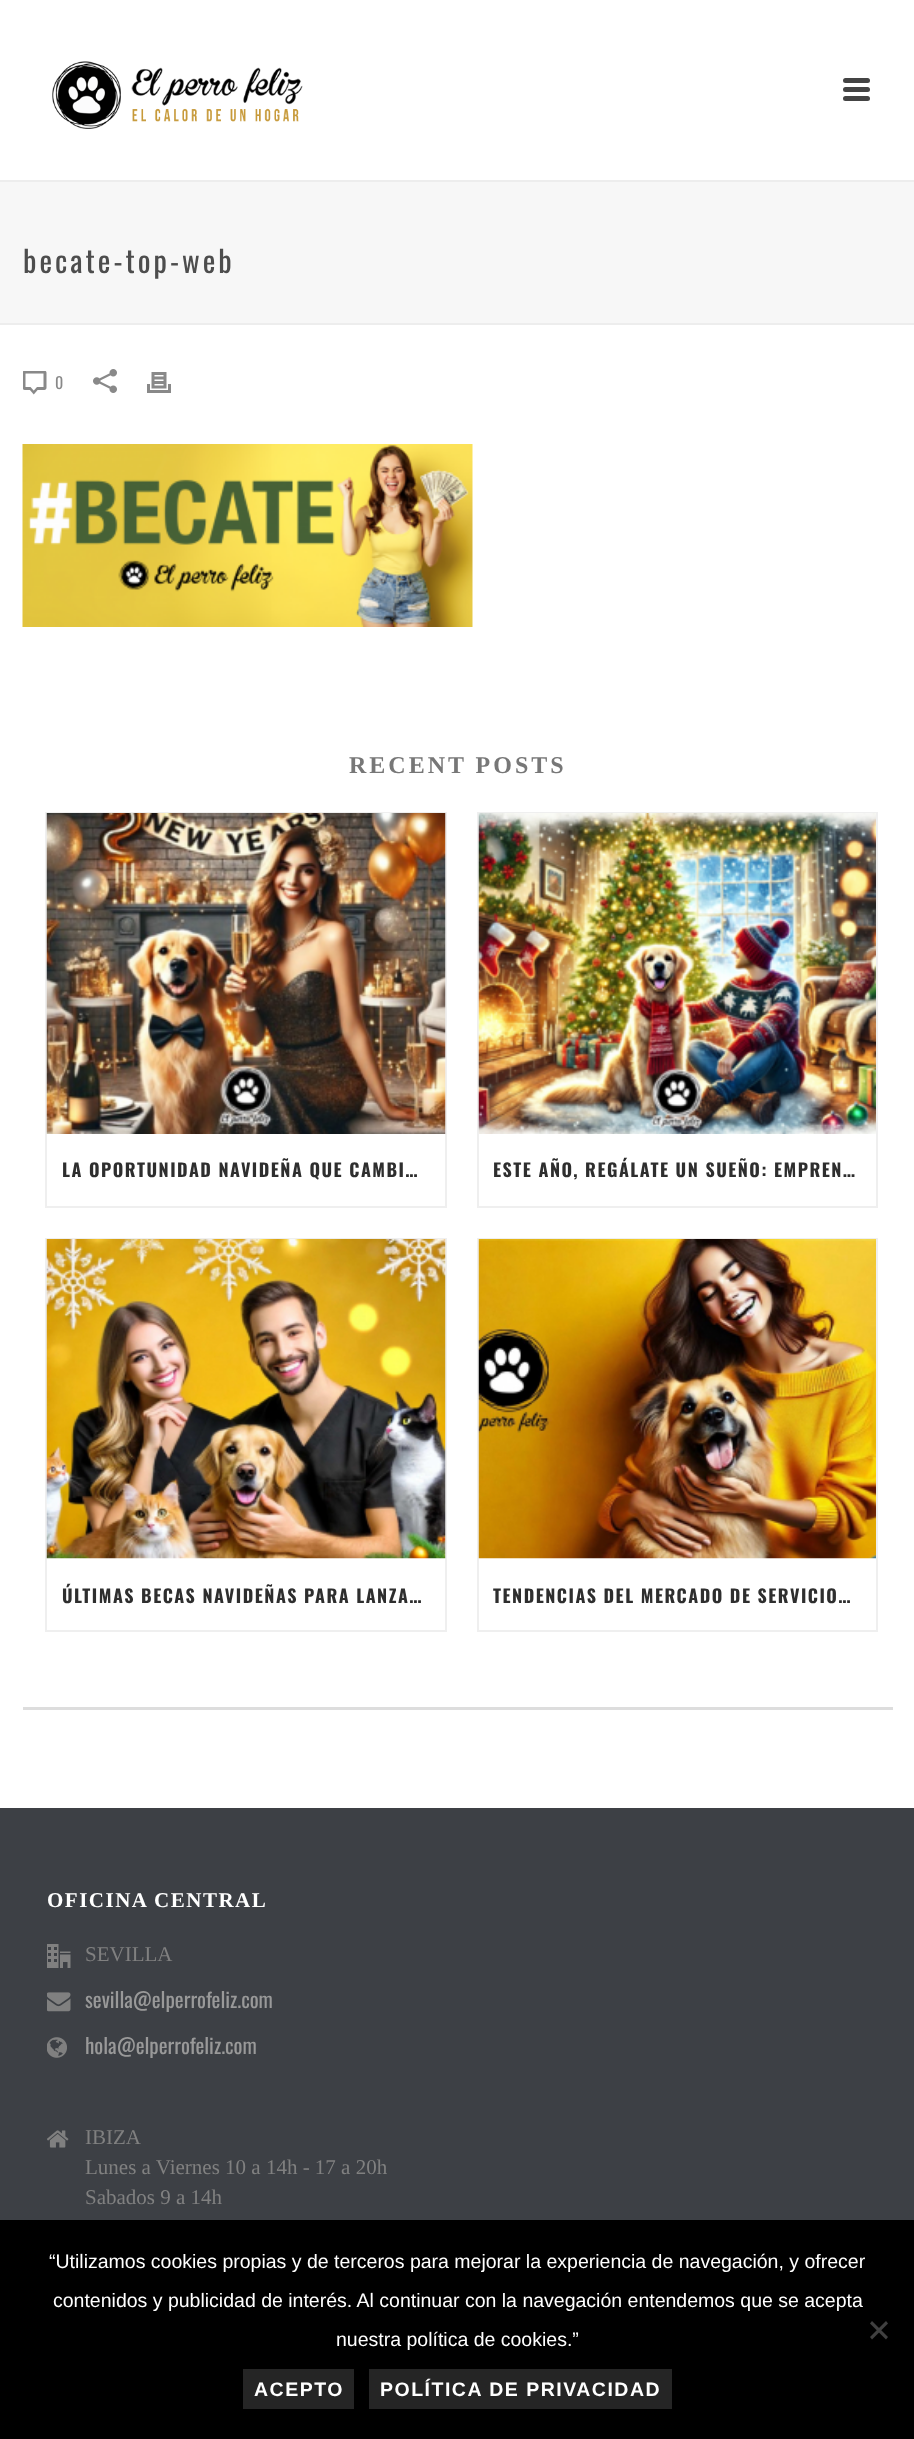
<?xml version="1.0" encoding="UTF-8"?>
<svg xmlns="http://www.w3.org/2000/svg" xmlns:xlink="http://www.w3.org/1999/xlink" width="914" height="2439">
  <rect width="100%" height="100%" fill="#ffffff" />
  <rect y="323" width="914" height="2" fill="#ededed" />
  <rect y="180" width="914" height="2" fill="#ededed" />
  <image x="52" y="61" width="251" height="68" xlink:href="image1.png" />
  <rect x="843" y="78" width="27" height="5" rx="2.5" fill="#444444" />
  <rect x="843" y="87" width="27" height="5" rx="2.5" fill="#444444" />
  <rect x="843" y="96" width="27" height="5" rx="2.5" fill="#444444" />
  <rect y="182" width="914" height="141" fill="#f7f7f7" />
  <image x="23" y="371" width="24" height="24" xlink:href="image2.png" />
  <image x="93" y="369" width="24" height="24" xlink:href="image3.png" />
  <image x="147" y="372" width="24" height="21" xlink:href="image4.png" />
  <image x="22" y="444" width="451" height="183" xlink:href="image5.png" />
  <rect x="23" y="1707" width="870" height="3" fill="#dddddd" />
  <rect x="46" y="813" width="400" height="394" fill="none" stroke="#efefef" stroke-width="2" />
  <image x="46" y="813" width="400" height="321" xlink:href="image6.png" />
  <rect x="478" y="813" width="399" height="394" fill="none" stroke="#efefef" stroke-width="2" />
  <image x="478" y="813" width="398" height="321" xlink:href="image7.png" />
  <rect x="46" y="1239" width="400" height="392" fill="none" stroke="#efefef" stroke-width="2" />
  <image x="46" y="1239" width="400" height="320" xlink:href="image8.png" />
  <rect x="478" y="1239" width="399" height="392" fill="none" stroke="#efefef" stroke-width="2" />
  <image x="478" y="1239" width="398" height="320" xlink:href="image9.png" />
  <rect y="1808" width="914" height="412" fill="#3d4045" />
  <image x="47" y="1944" width="24" height="24" xlink:href="image10.png" />
  <image x="47" y="1992" width="24" height="20" xlink:href="image11.png" />
  <image x="47" y="2037" width="20" height="21" xlink:href="image12.png" />
  <image x="47" y="2130" width="22" height="18" xlink:href="image13.png" />
  <rect y="2220" width="914" height="219" fill="#000000" />
  <path d="M 886 2321 l 2 2.5 l -16 16 l -2 -2.5 z" fill="#404040" />
  <path d="M 870 2323.5 l 2 -2.5 l 16 16 l -2 2.5 z" fill="#404040" />
  <rect x="243" y="2369" width="111" height="40" fill="#252525" />
  <rect x="369" y="2369" width="303" height="40" fill="#252525" />
  <text x="23" y="273" style="font-family: Oswald; font-size: 30px; letter-spacing: 3px; fill: #4d4d4d">becate-top-web</text>
  <text x="55" y="389" style="font-family: Oswald; font-size: 16px; fill: #898989">0</text>
  <text x="349" y="773" style="font-family: Liberation Serif; font-size: 24px; font-weight: bold; letter-spacing: 3px; fill: #777777">RECENT POSTS</text>
  <text x="62" y="1177" style="font-family: Oswald; font-size: 18px; font-weight: bold; letter-spacing: 1.5px; fill: #2e2e2e">LA OPORTUNIDAD NAVIDEÑA QUE CAMBI…</text>
  <text x="493" y="1177" style="font-family: Oswald; font-size: 18px; font-weight: bold; letter-spacing: 1.5px; fill: #2e2e2e">ESTE AÑO, REGÁLATE UN SUEÑO: EMPREN…</text>
  <text x="62" y="1603" style="font-family: Oswald; font-size: 18px; font-weight: bold; letter-spacing: 1.5px; fill: #2e2e2e">ÚLTIMAS BECAS NAVIDEÑAS PARA LANZA…</text>
  <text x="493" y="1603" style="font-family: Oswald; font-size: 18px; font-weight: bold; letter-spacing: 1.5px; fill: #2e2e2e">TENDENCIAS DEL MERCADO DE SERVICIO…</text>
  <text x="47" y="1907" style="font-family: Liberation Serif; font-size: 21px; font-weight: bold; letter-spacing: 1.5px; fill: #ffffff">OFICINA CENTRAL</text>
  <text x="85" y="1961" style="font-family: Liberation Serif; font-size: 21px; fill: #808080">SEVILLA</text>
  <text x="85" y="2008" style="font-family: Oswald; font-size: 21px; fill: #999999">sevilla@elperrofeliz.com</text>
  <text x="85" y="2054" style="font-family: Oswald; font-size: 21px; fill: #999999">hola@elperrofeliz.com</text>
  <text x="85" y="2144" style="font-family: Liberation Serif; font-size: 21px; fill: #808080">IBIZA</text>
  <text x="85" y="2174" style="font-family: Liberation Serif; font-size: 21px; fill: #808080">Lunes a Viernes 10 a 14h - 17 a 20h</text>
  <text x="85" y="2204" style="font-family: Liberation Serif; font-size: 21px; fill: #808080">Sabados 9 a 14h</text>
  <text x="49" y="2268" style="font-family: Liberation Sans; font-size: 19.5px; fill: #ffffff">“Utilizamos cookies propias y de terceros para mejorar la experiencia de navegación, y ofrecer</text>
  <text x="53" y="2307" style="font-family: Liberation Sans; font-size: 19.5px; fill: #ffffff">contenidos y publicidad de interés. Al continuar con la navegación entendemos que se acepta</text>
  <text x="336" y="2346" style="font-family: Liberation Sans; font-size: 19.5px; fill: #ffffff">nuestra política de cookies.”</text>
  <text x="254" y="2396" style="font-family: Liberation Sans; font-size: 19.5px; font-weight: bold; letter-spacing: 1.5px; fill: #ffffff">ACEPTO</text>
  <text x="380" y="2396" style="font-family: Liberation Sans; font-size: 19.5px; font-weight: bold; letter-spacing: 1.5px; fill: #ffffff">POLÍTICA DE PRIVACIDAD</text>
</svg>
